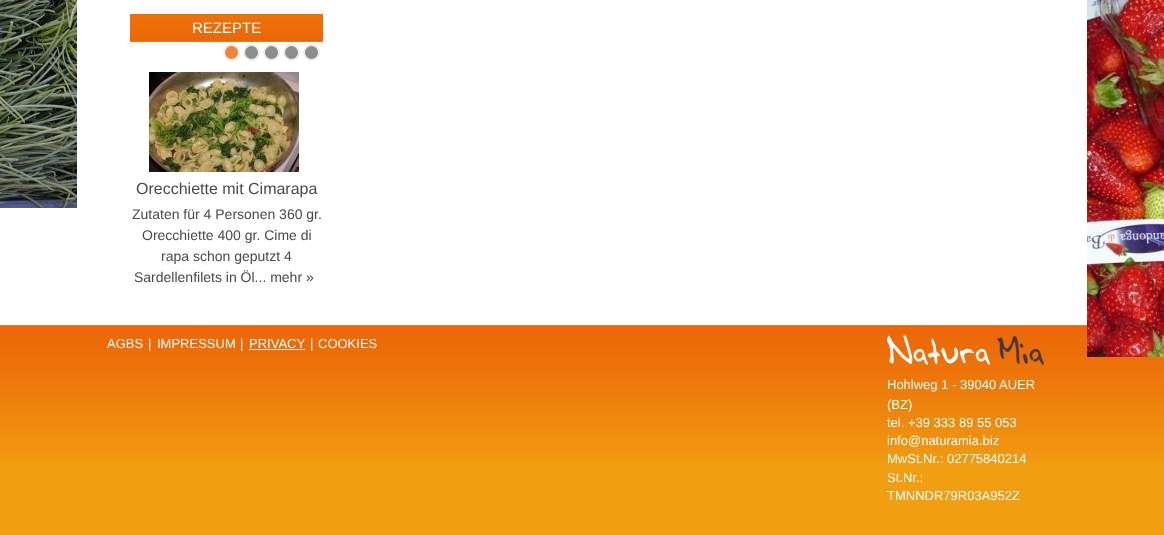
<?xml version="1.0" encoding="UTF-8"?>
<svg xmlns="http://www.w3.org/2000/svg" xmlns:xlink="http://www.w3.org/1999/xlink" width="1164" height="535">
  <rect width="100%" height="100%" fill="#ffffff" />
  <image x="0" y="0" width="77" height="208" xlink:href="image1.png" />
  <image x="130" y="14" width="193" height="28" xlink:href="image2.png" />
  <circle cx="231.5" cy="52.5" r="7.5" fill="#f08539" stroke="#ededed" stroke-width="2" />
  <circle cx="251.5" cy="52.5" r="7.5" fill="#8d8d8f" stroke="#ededed" stroke-width="2" />
  <circle cx="271.5" cy="52.5" r="7.5" fill="#8d8d8f" stroke="#ededed" stroke-width="2" />
  <circle cx="291.5" cy="52.5" r="7.5" fill="#8d8d8f" stroke="#ededed" stroke-width="2" />
  <circle cx="311.5" cy="52.5" r="7.5" fill="#8d8d8f" stroke="#ededed" stroke-width="2" />
  <image x="149" y="72" width="150" height="100" xlink:href="image3.png" />
  <image x="0" y="325" width="1164" height="136" xlink:href="image5.png" />
  <image x="1087" y="0" width="77" height="357" xlink:href="image4.png" />
  <rect y="461" width="1164" height="74" fill="#f19e11" />
  <rect x="249" y="349" width="56" height="1" fill="#ffffff" />
  <image x="887" y="335" width="157" height="30" xlink:href="image6.png" />
  <text x="192" y="33" style="font-family: Liberation Sans; font-size: 15px; fill: #ffffff">REZEPTE</text>
  <text x="136" y="194" style="font-family: Liberation Sans; font-size: 16px; fill: #4a4a4a">Orecchiette mit Cimarapa</text>
  <text x="132" y="219" style="font-family: Liberation Sans; font-size: 14px; fill: #4a4a4a">Zutaten für 4 Personen 360 gr.</text>
  <text x="142" y="240" style="font-family: Liberation Sans; font-size: 14px; fill: #4a4a4a">Orecchiette 400 gr. Cime di</text>
  <text x="161" y="261" style="font-family: Liberation Sans; font-size: 14px; fill: #4a4a4a">rapa schon geputzt 4</text>
  <text x="134" y="282" style="font-family: Liberation Sans; font-size: 14px; fill: #4a4a4a">Sardellenfilets in Öl... mehr »</text>
  <text x="107" y="348" style="font-family: Liberation Sans; font-size: 13px; fill: #ffffff">AGBS</text>
  <text x="148" y="348" style="font-family: Liberation Sans; font-size: 13px; fill: #ffffff">|</text>
  <text x="157" y="348" style="font-family: Liberation Sans; font-size: 13px; fill: #ffffff">IMPRESSUM</text>
  <text x="240" y="348" style="font-family: Liberation Sans; font-size: 13px; fill: #ffffff">|</text>
  <text x="249" y="348" style="font-family: Liberation Sans; font-size: 13px; fill: #ffffff">PRIVACY</text>
  <text x="310" y="348" style="font-family: Liberation Sans; font-size: 13px; fill: #ffffff">|</text>
  <text x="318" y="348" style="font-family: Liberation Sans; font-size: 13px; fill: #ffffff">COOKIES</text>
  <text x="887" y="389" style="font-family: Liberation Sans; font-size: 13px; fill: #ffffff">Hohlweg 1 - 39040 AUER</text>
  <text x="887" y="409" style="font-family: Liberation Sans; font-size: 13px; fill: #ffffff">(BZ)</text>
  <text x="887" y="427" style="font-family: Liberation Sans; font-size: 13px; fill: #ffffff">tel. +39 333 89 55 053</text>
  <text x="887" y="445" style="font-family: Liberation Sans; font-size: 13px; fill: #ffffff">info@naturamia.biz</text>
  <text x="887" y="463" style="font-family: Liberation Sans; font-size: 13px; fill: #ffffff">MwSt.Nr.: 02775840214</text>
  <text x="887" y="482" style="font-family: Liberation Sans; font-size: 13px; fill: #ffffff">St.Nr.:</text>
  <text x="887" y="500" style="font-family: Liberation Sans; font-size: 13px; fill: #ffffff">TMNNDR79R03A952Z</text>
</svg>
